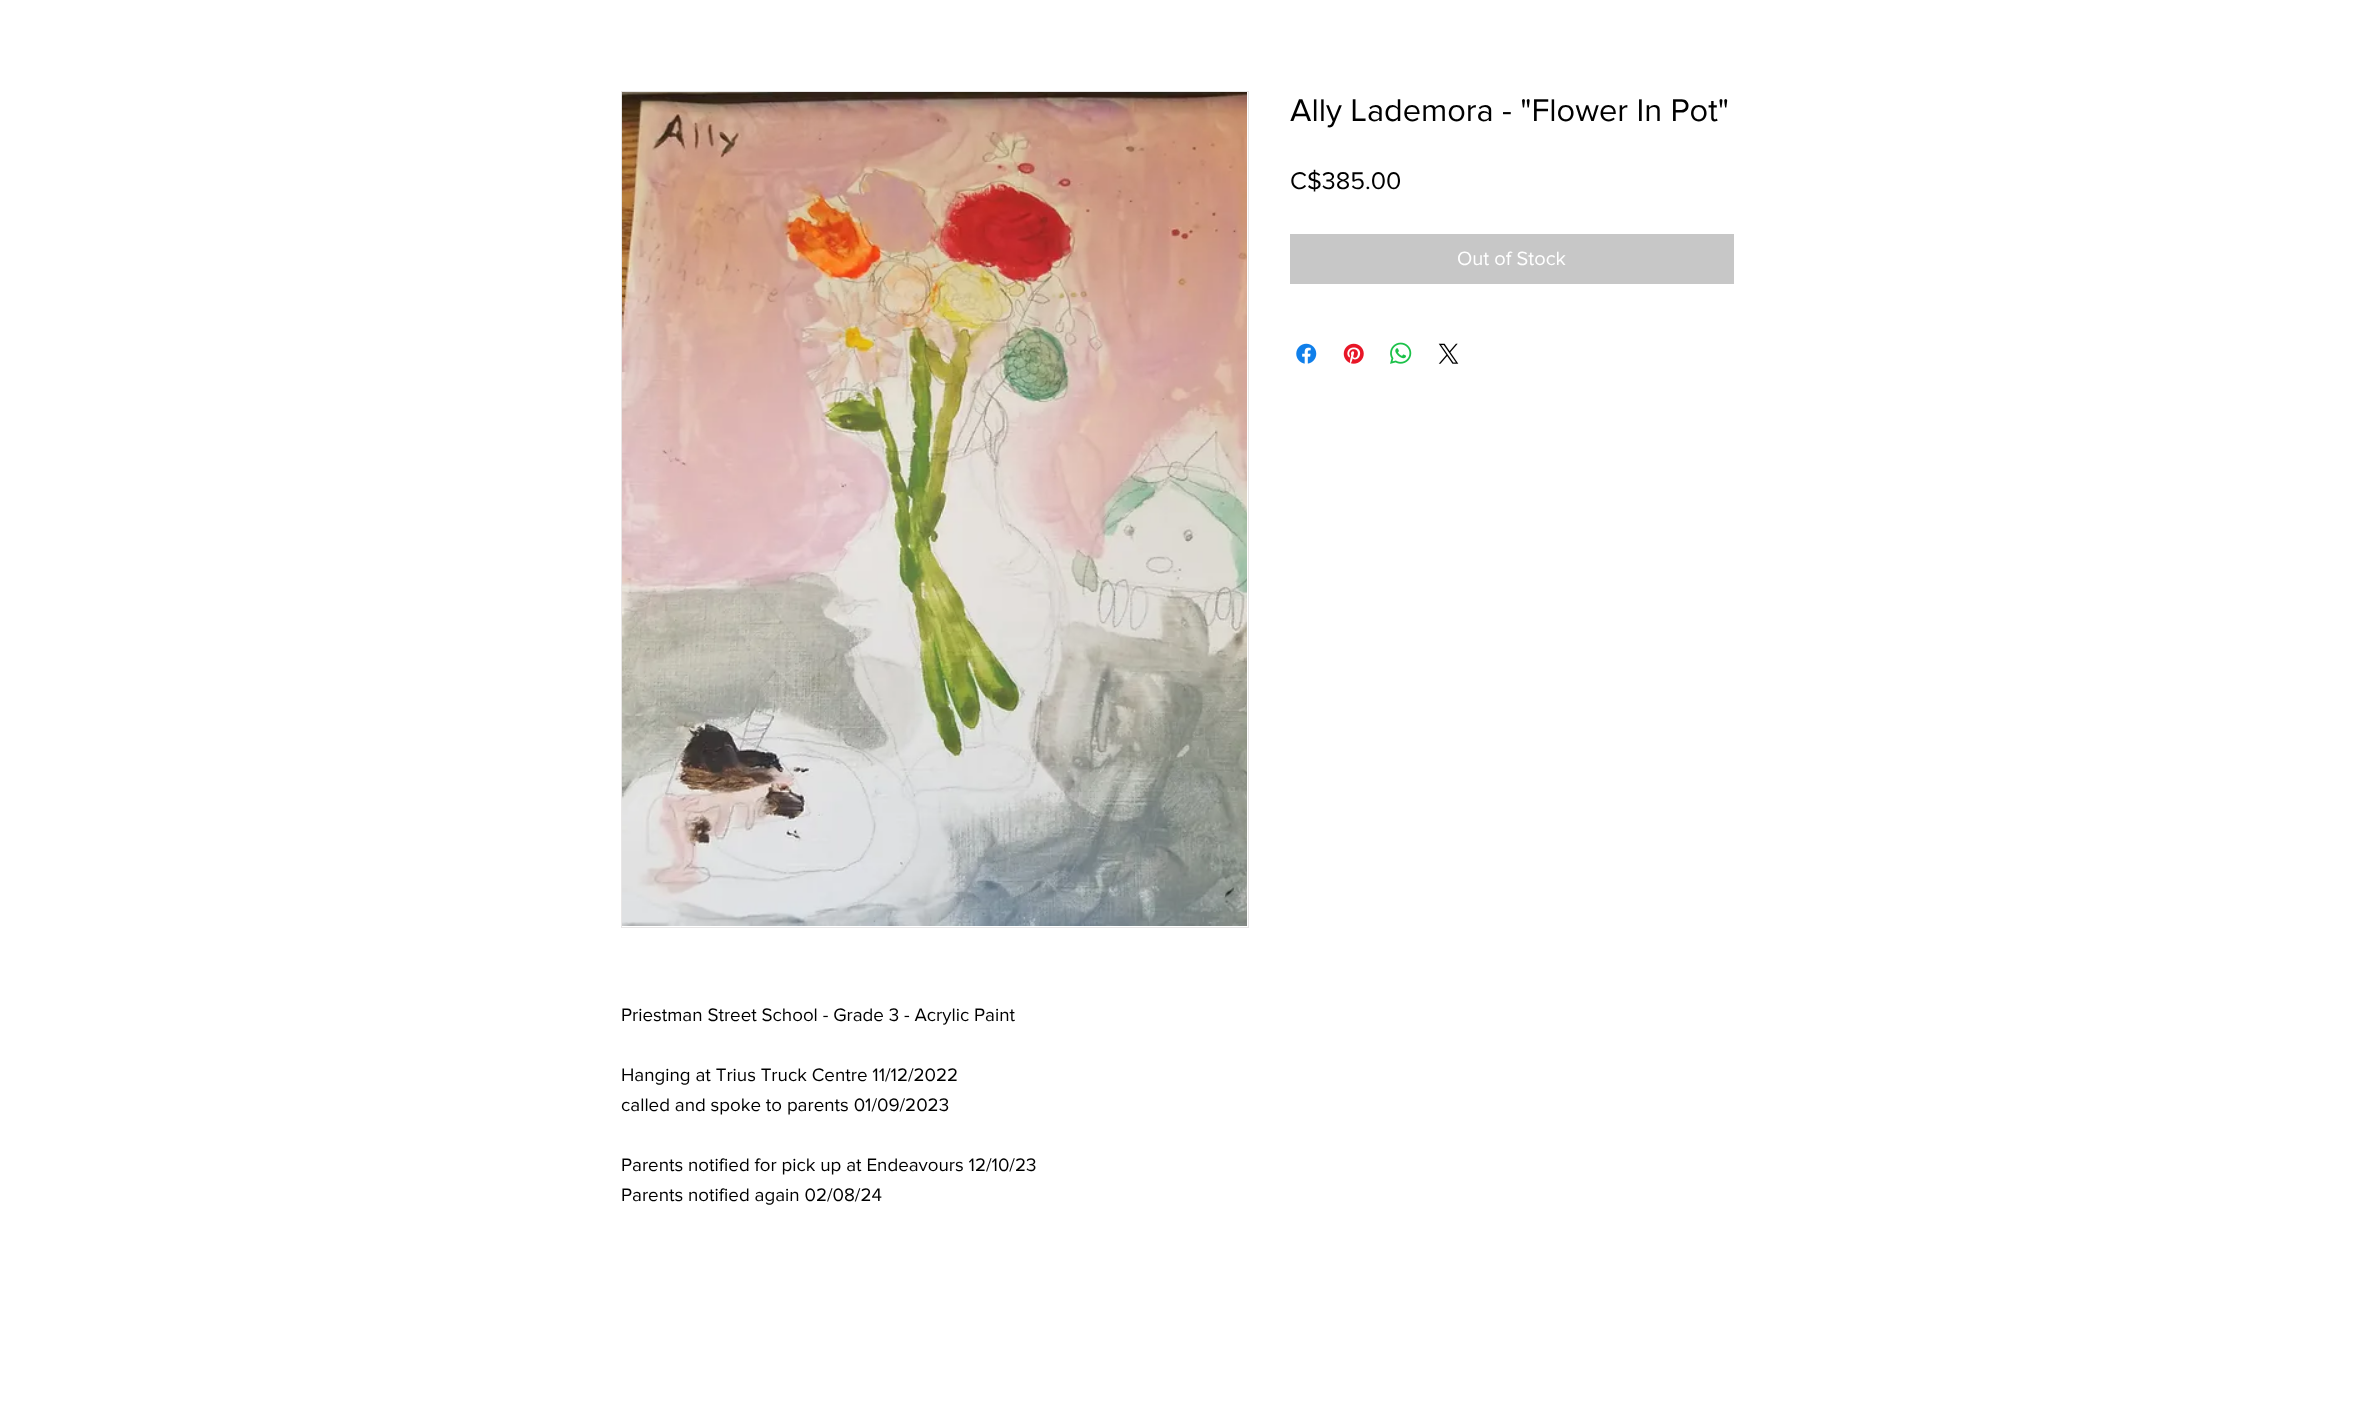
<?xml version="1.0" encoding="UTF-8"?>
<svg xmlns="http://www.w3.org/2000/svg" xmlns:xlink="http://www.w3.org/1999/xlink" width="2354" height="1428">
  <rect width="100%" height="100%" fill="#ffffff" />
  <rect x="1290" y="234" width="444" height="50" fill="#c7c7c7" />
  <image x="1296" y="343" width="21" height="21" xlink:href="image1.png" />
  <image x="1343" y="343" width="21" height="21" xlink:href="image2.png" />
  <image x="1390" y="342" width="22" height="22" xlink:href="image3.png" />
  <image x="1438" y="343" width="21" height="21" xlink:href="image4.png" />
  <rect x="621.5" y="91.5" width="627" height="836" fill="none" stroke="#e8e6e6" />
  <image x="622" y="92" width="625" height="834" xlink:href="image5.png" />
  <text x="1290" y="121" style="font-family: 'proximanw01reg'; font-size: 32.5px; fill: #000000">Ally Lademora - "Flower In Pot"</text>
  <text x="1290" y="189" style="font-family: 'proximanw01reg'; font-size: 25px; fill: #000000">C$385.00</text>
  <text x="1457" y="265" style="font-family: 'proximanw01reg'; font-size: 20px; fill: #ffffff">Out of Stock</text>
  <text x="621" y="1021" style="font-family: 'proximanw01reg'; font-size: 18.75px; fill: #000000">Priestman Street School - Grade 3 - Acrylic Paint</text>
  <text x="621" y="1081" style="font-family: 'proximanw01reg'; font-size: 18.75px; fill: #000000">Hanging at Trius Truck Centre 11/12/2022</text>
  <text x="621" y="1111" style="font-family: 'proximanw01reg'; font-size: 18.75px; fill: #000000">called and spoke to parents 01/09/2023</text>
  <text x="621" y="1171" style="font-family: 'proximanw01reg'; font-size: 18.75px; fill: #000000">Parents notified for pick up at Endeavours 12/10/23</text>
  <text x="621" y="1201" style="font-family: 'proximanw01reg'; font-size: 18.75px; fill: #000000">Parents notified again 02/08/24</text>
</svg>
